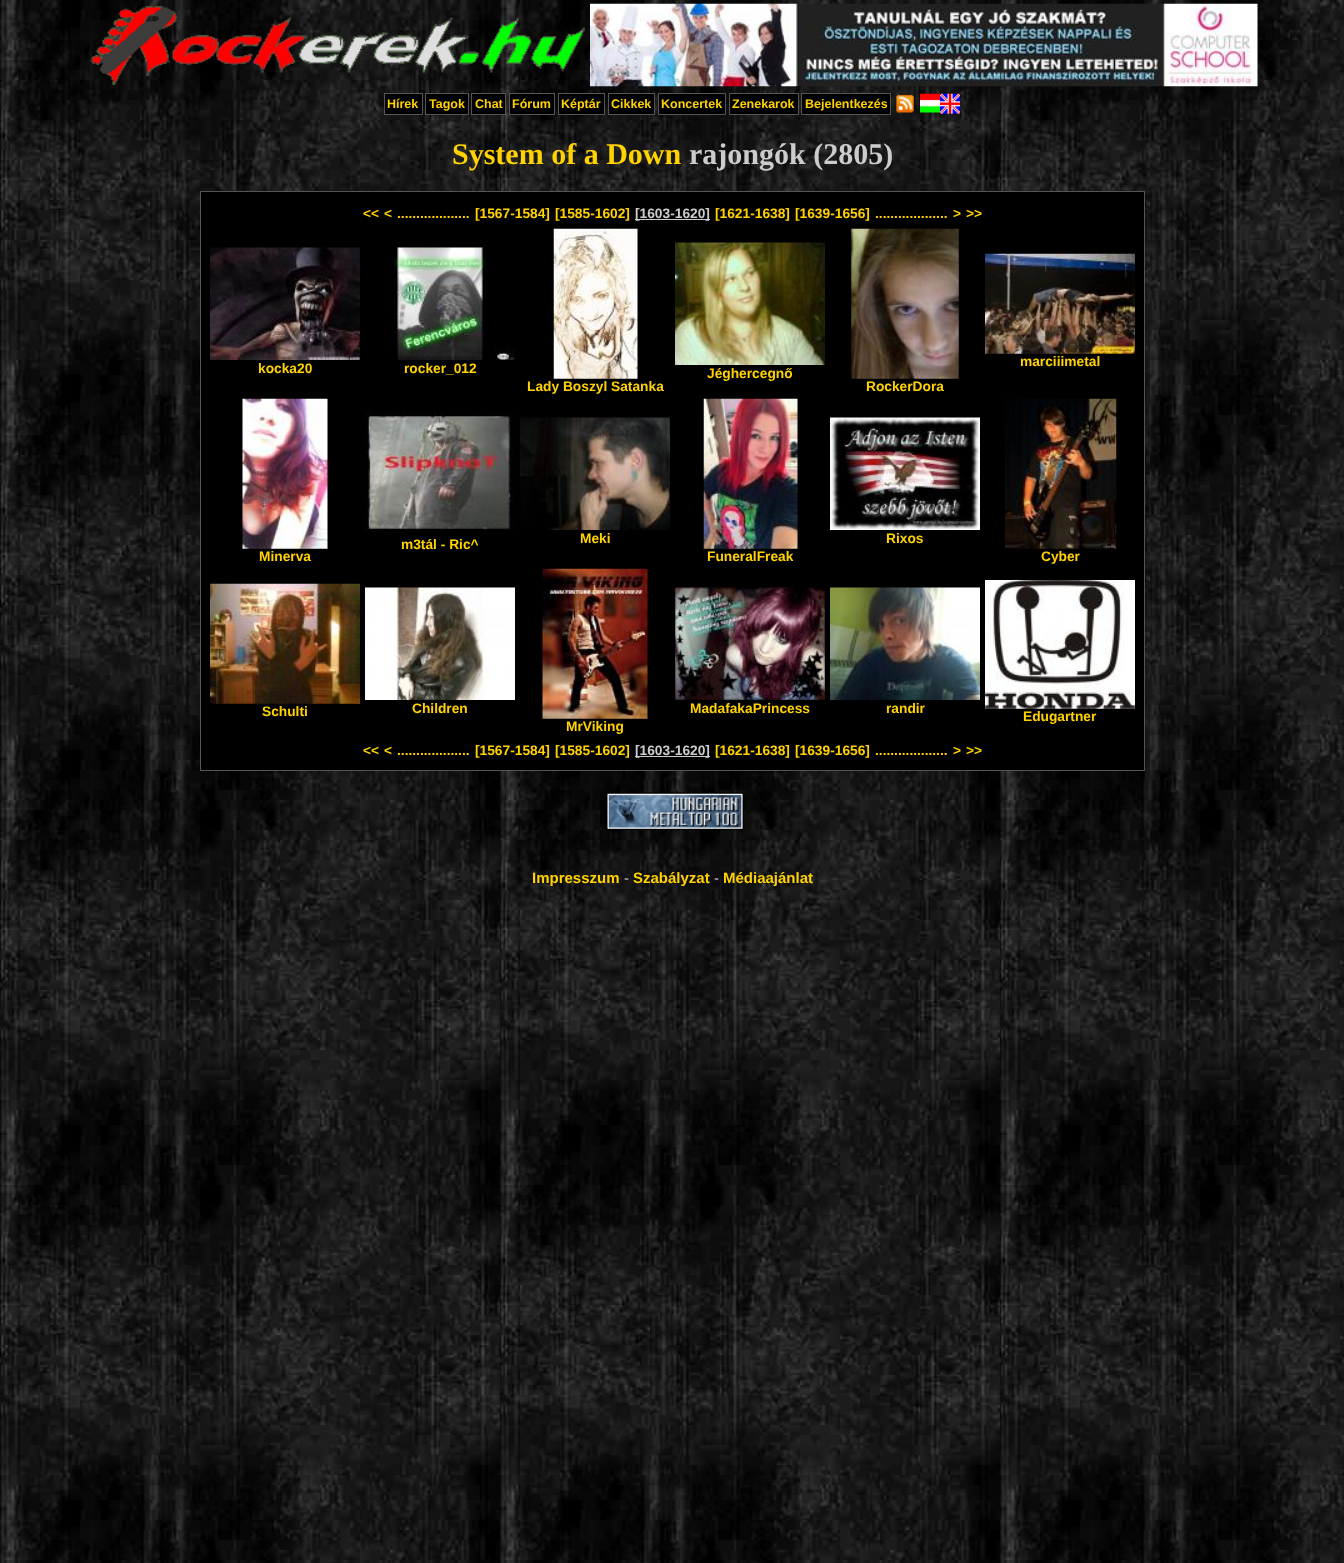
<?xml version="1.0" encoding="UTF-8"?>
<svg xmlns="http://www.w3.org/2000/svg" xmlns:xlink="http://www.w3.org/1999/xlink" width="1344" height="1563">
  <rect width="100%" height="100%" fill="#ffffff" />
  <image x="0" y="0" width="1344" height="1563" xlink:href="image1.png" />
  <image x="90" y="6" width="495" height="79" xlink:href="image2.png" />
  <image x="590" y="3" width="668" height="84" xlink:href="image3.png" />
  <rect x="384.5" y="93.5" width="38" height="21" fill="#000000" stroke="#595454" />
  <rect x="425.5" y="93.5" width="43" height="21" fill="#000000" stroke="#595454" />
  <rect x="471.5" y="93.5" width="34" height="21" fill="#000000" stroke="#595454" />
  <rect x="509.5" y="93.5" width="45" height="21" fill="#000000" stroke="#595454" />
  <rect x="558.5" y="93.5" width="46" height="21" fill="#000000" stroke="#595454" />
  <rect x="608.5" y="93.5" width="46" height="21" fill="#000000" stroke="#595454" />
  <rect x="658.5" y="93.5" width="67" height="21" fill="#000000" stroke="#595454" />
  <rect x="729.5" y="93.5" width="69" height="21" fill="#000000" stroke="#595454" />
  <rect x="801.5" y="93.5" width="89" height="21" fill="#000000" stroke="#595454" />
  <image x="896" y="94" width="18" height="19" xlink:href="image4.png" />
  <image x="920" y="93" width="20" height="20" xlink:href="image5.png" />
  <image x="940" y="93" width="20" height="21" xlink:href="image6.png" />
  <rect x="200.5" y="191.5" width="944" height="579" fill="#000000" stroke="#595454" />
  <rect x="635" y="219" width="75" height="1" fill="#cccccc" />
  <image x="985" y="253" width="150" height="101" xlink:href="image7.png" />
  <image x="210" y="247" width="150" height="113" xlink:href="image8.png" />
  <image x="385" y="247" width="130" height="113" xlink:href="image9.png" />
  <image x="675" y="242" width="150" height="123" xlink:href="image10.png" />
  <image x="553" y="228" width="85" height="151" xlink:href="image11.png" />
  <image x="851" y="228" width="108" height="151" xlink:href="image12.png" />
  <image x="365" y="411" width="150" height="120" xlink:href="image13.png" />
  <image x="520" y="417" width="150" height="113" xlink:href="image14.png" />
  <image x="830" y="417" width="150" height="113" xlink:href="image15.png" />
  <image x="242" y="398" width="86" height="151" xlink:href="image16.png" />
  <image x="703" y="398" width="95" height="151" xlink:href="image17.png" />
  <image x="1005" y="398" width="112" height="151" xlink:href="image18.png" />
  <image x="210" y="583" width="150" height="121" xlink:href="image19.png" />
  <image x="365" y="587" width="150" height="113" xlink:href="image20.png" />
  <image x="675" y="587" width="150" height="113" xlink:href="image21.png" />
  <image x="830" y="587" width="150" height="113" xlink:href="image22.png" />
  <image x="985" y="580" width="150" height="129" xlink:href="image23.png" />
  <image x="542" y="568" width="106" height="151" xlink:href="image24.png" />
  <rect x="635" y="756" width="75" height="1" fill="#cccccc" />
  <image x="606" y="792" width="138" height="38" xlink:href="image25.png" />
  <text x="387" y="108" style="font-family: Liberation Sans; font-size: 12.5px; font-weight: bold; fill: #ffd200">Hírek</text>
  <text x="429" y="108" style="font-family: Liberation Sans; font-size: 12.5px; font-weight: bold; fill: #ffd200">Tagok</text>
  <text x="475" y="108" style="font-family: Liberation Sans; font-size: 12.5px; font-weight: bold; fill: #ffd200">Chat</text>
  <text x="512" y="108" style="font-family: Liberation Sans; font-size: 12.5px; font-weight: bold; fill: #ffd200">Fórum</text>
  <text x="561" y="108" style="font-family: Liberation Sans; font-size: 12.5px; font-weight: bold; fill: #ffd200">Képtár</text>
  <text x="611" y="108" style="font-family: Liberation Sans; font-size: 12.5px; font-weight: bold; fill: #ffd200">Cikkek</text>
  <text x="661" y="108" style="font-family: Liberation Sans; font-size: 12.5px; font-weight: bold; fill: #ffd200">Koncertek</text>
  <text x="732" y="108" style="font-family: Liberation Sans; font-size: 12.5px; font-weight: bold; fill: #ffd200">Zenekarok</text>
  <text x="805" y="108" style="font-family: Liberation Sans; font-size: 12.5px; font-weight: bold; fill: #ffd200">Bejelentkezés</text>
  <text x="452" y="164" style="font-family: Liberation Serif; font-size: 30px; font-weight: bold; fill: #ffd200">System of a Down</text>
  <text x="689" y="164" style="font-family: Liberation Serif; font-size: 30px; font-weight: bold; fill: #cccccc">rajongók (2805)</text>
  <text x="363" y="218" style="font-family: Liberation Sans; font-size: 13.75px; font-weight: bold; fill: #ffd200">&lt;&lt;</text>
  <text x="384" y="218" style="font-family: Liberation Sans; font-size: 13.75px; font-weight: bold; fill: #ffd200">&lt;</text>
  <text x="397" y="218" style="font-family: Liberation Sans; font-size: 13.75px; font-weight: bold; fill: #ffd200">...................</text>
  <text x="475" y="218" style="font-family: Liberation Sans; font-size: 13.75px; font-weight: bold; fill: #ffd200">[1567-1584]</text>
  <text x="555" y="218" style="font-family: Liberation Sans; font-size: 13.75px; font-weight: bold; fill: #ffd200">[1585-1602]</text>
  <text x="635" y="218" style="font-family: Liberation Sans; font-size: 13.75px; font-weight: bold; fill: #cccccc">[1603-1620]</text>
  <text x="715" y="218" style="font-family: Liberation Sans; font-size: 13.75px; font-weight: bold; fill: #ffd200">[1621-1638]</text>
  <text x="795" y="218" style="font-family: Liberation Sans; font-size: 13.75px; font-weight: bold; fill: #ffd200">[1639-1656]</text>
  <text x="875" y="218" style="font-family: Liberation Sans; font-size: 13.75px; font-weight: bold; fill: #ffd200">...................</text>
  <text x="953" y="218" style="font-family: Liberation Sans; font-size: 13.75px; font-weight: bold; fill: #ffd200">&gt;</text>
  <text x="966" y="218" style="font-family: Liberation Sans; font-size: 13.75px; font-weight: bold; fill: #ffd200">&gt;&gt;</text>
  <text x="1020" y="366" style="font-family: Liberation Sans; font-size: 13.75px; font-weight: bold; fill: #ffd200">marciiimetal</text>
  <text x="258" y="373" style="font-family: Liberation Sans; font-size: 13.75px; font-weight: bold; fill: #ffd200">kocka20</text>
  <text x="404" y="373" style="font-family: Liberation Sans; font-size: 13.75px; font-weight: bold; fill: #ffd200">rocker_012</text>
  <text x="707" y="378" style="font-family: Liberation Sans; font-size: 13.75px; font-weight: bold; fill: #ffd200">Jéghercegnő</text>
  <text x="527" y="391" style="font-family: Liberation Sans; font-size: 13.75px; font-weight: bold; fill: #ffd200">Lady Boszyl Satanka</text>
  <text x="866" y="391" style="font-family: Liberation Sans; font-size: 13.75px; font-weight: bold; fill: #ffd200">RockerDora</text>
  <text x="401" y="549" style="font-family: Liberation Sans; font-size: 13.75px; font-weight: bold; fill: #ffd200">m3tál - Ric^</text>
  <text x="580" y="543" style="font-family: Liberation Sans; font-size: 13.75px; font-weight: bold; fill: #ffd200">Meki</text>
  <text x="886" y="543" style="font-family: Liberation Sans; font-size: 13.75px; font-weight: bold; fill: #ffd200">Rixos</text>
  <text x="259" y="561" style="font-family: Liberation Sans; font-size: 13.75px; font-weight: bold; fill: #ffd200">Minerva</text>
  <text x="707" y="561" style="font-family: Liberation Sans; font-size: 13.75px; font-weight: bold; fill: #ffd200">FuneralFreak</text>
  <text x="1041" y="561" style="font-family: Liberation Sans; font-size: 13.75px; font-weight: bold; fill: #ffd200">Cyber</text>
  <text x="262" y="716" style="font-family: Liberation Sans; font-size: 13.75px; font-weight: bold; fill: #ffd200">Schulti</text>
  <text x="412" y="713" style="font-family: Liberation Sans; font-size: 13.75px; font-weight: bold; fill: #ffd200">Children</text>
  <text x="690" y="713" style="font-family: Liberation Sans; font-size: 13.75px; font-weight: bold; fill: #ffd200">MadafakaPrincess</text>
  <text x="886" y="713" style="font-family: Liberation Sans; font-size: 13.75px; font-weight: bold; fill: #ffd200">randir</text>
  <text x="1023" y="721" style="font-family: Liberation Sans; font-size: 13.75px; font-weight: bold; fill: #ffd200">Edugartner</text>
  <text x="566" y="731" style="font-family: Liberation Sans; font-size: 13.75px; font-weight: bold; fill: #ffd200">MrViking</text>
  <text x="363" y="755" style="font-family: Liberation Sans; font-size: 13.75px; font-weight: bold; fill: #ffd200">&lt;&lt;</text>
  <text x="384" y="755" style="font-family: Liberation Sans; font-size: 13.75px; font-weight: bold; fill: #ffd200">&lt;</text>
  <text x="397" y="755" style="font-family: Liberation Sans; font-size: 13.75px; font-weight: bold; fill: #ffd200">...................</text>
  <text x="475" y="755" style="font-family: Liberation Sans; font-size: 13.75px; font-weight: bold; fill: #ffd200">[1567-1584]</text>
  <text x="555" y="755" style="font-family: Liberation Sans; font-size: 13.75px; font-weight: bold; fill: #ffd200">[1585-1602]</text>
  <text x="635" y="755" style="font-family: Liberation Sans; font-size: 13.75px; font-weight: bold; fill: #cccccc">[1603-1620]</text>
  <text x="715" y="755" style="font-family: Liberation Sans; font-size: 13.75px; font-weight: bold; fill: #ffd200">[1621-1638]</text>
  <text x="795" y="755" style="font-family: Liberation Sans; font-size: 13.75px; font-weight: bold; fill: #ffd200">[1639-1656]</text>
  <text x="875" y="755" style="font-family: Liberation Sans; font-size: 13.75px; font-weight: bold; fill: #ffd200">...................</text>
  <text x="953" y="755" style="font-family: Liberation Sans; font-size: 13.75px; font-weight: bold; fill: #ffd200">&gt;</text>
  <text x="966" y="755" style="font-family: Liberation Sans; font-size: 13.75px; font-weight: bold; fill: #ffd200">&gt;&gt;</text>
  <text x="532" y="883" style="font-family: Liberation Sans; font-size: 15px; font-weight: bold; fill: #ffd200">Impresszum</text>
  <text x="624" y="883" style="font-family: Liberation Sans; font-size: 15px; fill: #cccccc">-</text>
  <text x="633" y="883" style="font-family: Liberation Sans; font-size: 15px; font-weight: bold; fill: #ffd200">Szabályzat</text>
  <text x="714" y="883" style="font-family: Liberation Sans; font-size: 15px; fill: #cccccc">-</text>
  <text x="723" y="883" style="font-family: Liberation Sans; font-size: 15px; font-weight: bold; fill: #ffd200">Médiaajánlat</text>
</svg>
